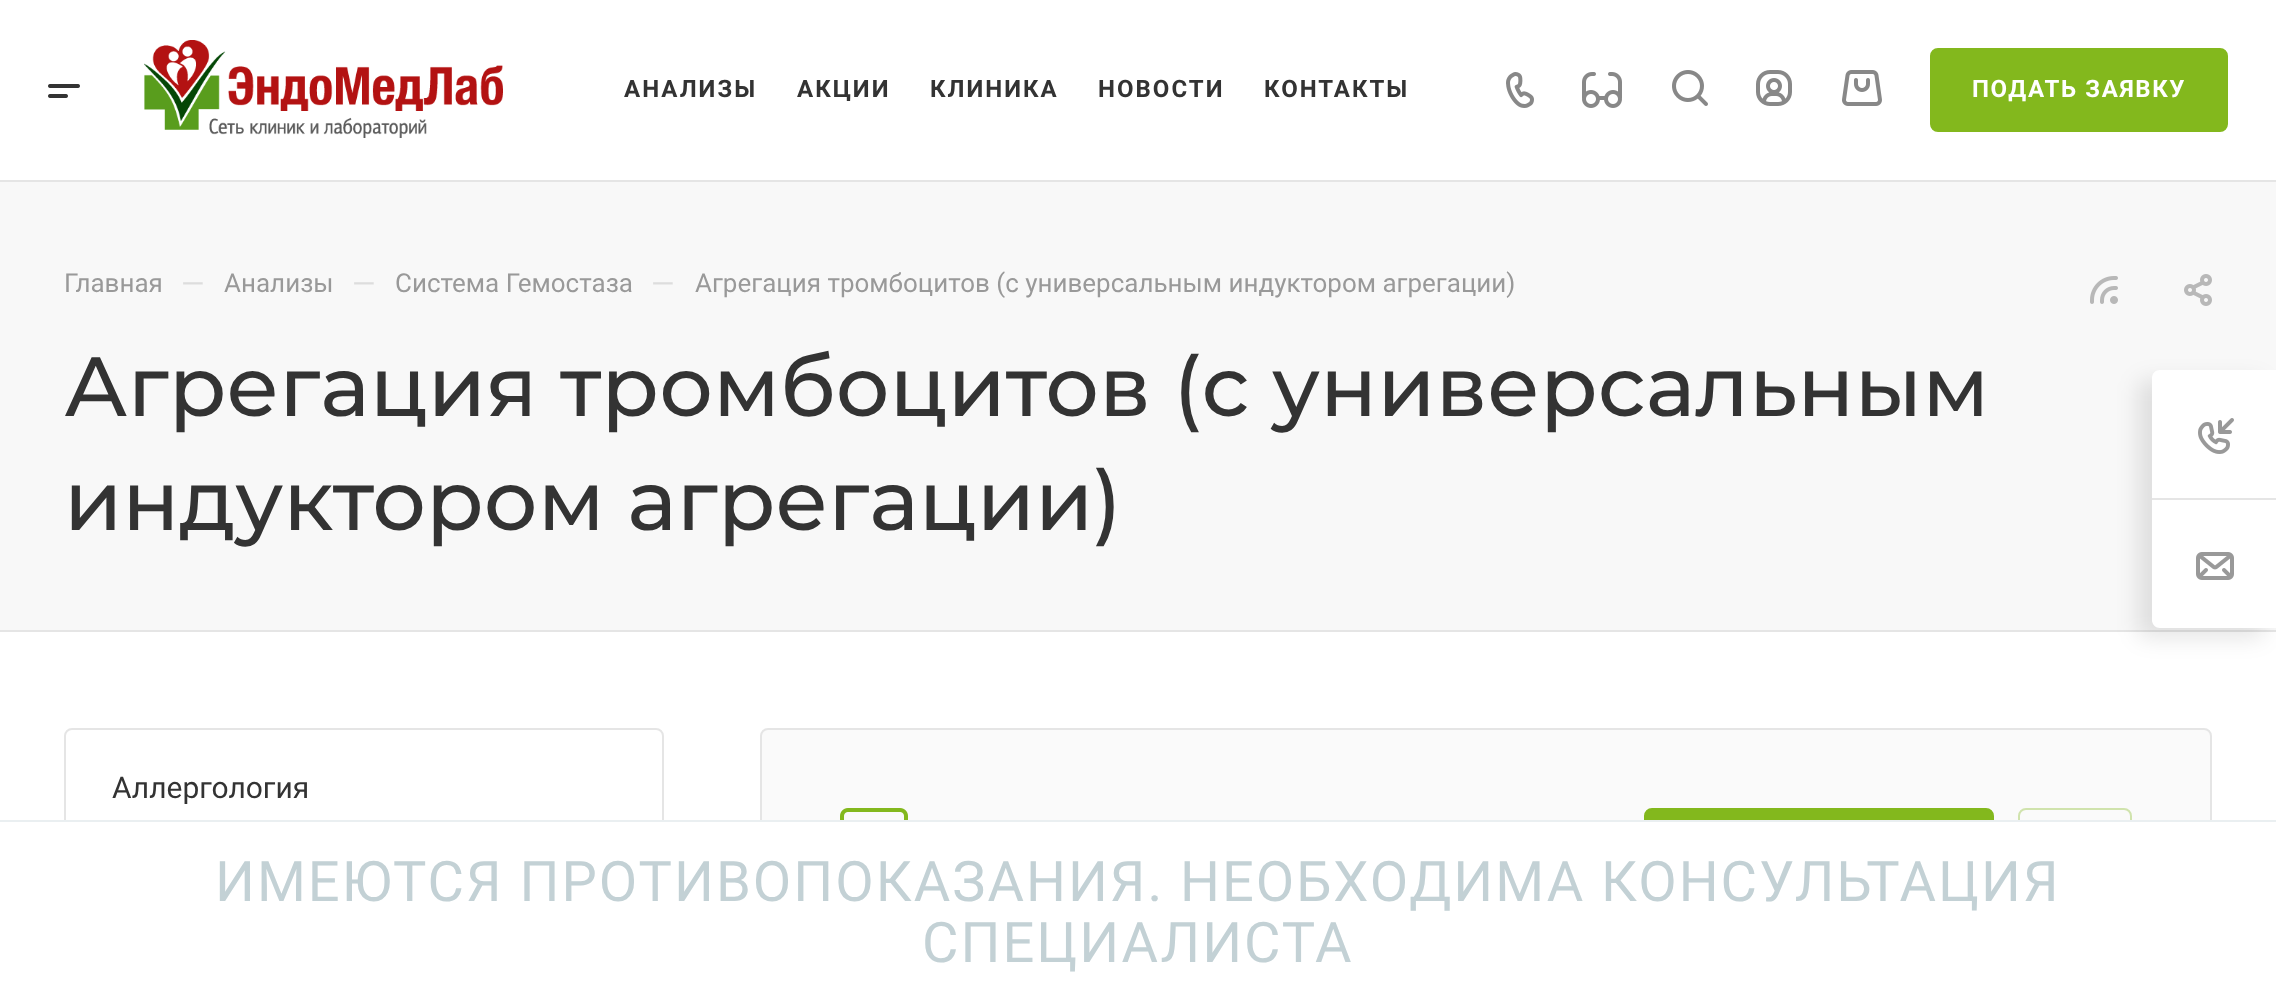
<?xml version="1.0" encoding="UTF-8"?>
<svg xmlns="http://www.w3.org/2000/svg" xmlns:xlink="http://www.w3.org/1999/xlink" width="2276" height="1003">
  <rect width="100%" height="100%" fill="#ffffff" />
  <rect y="180" width="2276" height="2" fill="#e5e5e5" />
  <image x="48" y="84" width="32" height="14" xlink:href="image1.png" />
  <image x="144" y="40" width="359" height="98" xlink:href="image2.png" />
  <image x="1506" y="72" width="28" height="36" xlink:href="image3.png" />
  <image x="1582" y="72" width="40" height="36" xlink:href="image4.png" />
  <image x="1672" y="70" width="36" height="36" xlink:href="image5.png" />
  <image x="1756" y="70" width="36" height="36" xlink:href="image6.png" />
  <image x="1842" y="70" width="40" height="36" xlink:href="image7.png" />
  <rect x="1931" y="49" width="296" height="82" rx="7" fill="#83b81d" stroke="#83b81d" stroke-width="2" />
  <rect y="182" width="2276" height="448" fill="#f8f8f8" />
  <rect y="630" width="2276" height="2" fill="#e5e5e5" />
  <image x="2090" y="276" width="28" height="28" xlink:href="image8.png" />
  <image x="2184" y="274" width="28" height="32" xlink:href="image9.png" />
  <rect x="65" y="729" width="598" height="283" rx="7" fill="none" stroke="#e5e5e5" stroke-width="2" />
  <rect x="761" y="729" width="1450" height="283" rx="7" fill="#fafafa" stroke="#e5e5e5" stroke-width="2" />
  <image x="840" y="808" width="68" height="12" xlink:href="image10.png" />
  <rect x="1645" y="809" width="348" height="92" rx="7" fill="#83b81d" stroke="#83b81d" stroke-width="2" />
  <rect x="2019" y="809" width="112" height="92" rx="7" fill="none" stroke="#d0e3ad" stroke-width="2" />
  <rect x="2138" y="380" width="126" height="258" rx="8" fill="#000000" fill-opacity="0.1" filter="blur(11px)" />
  <path d="M 2160 370 h 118 v 258 h -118 c -4.5 0 -8 -3.5 -8 -8 v -242 c 0 -4.5 3.5 -8 8 -8 z" fill="#ffffff" />
  <image x="2198" y="418" width="36" height="36" xlink:href="image11.png" />
  <rect x="2152" y="498" width="124" height="2" fill="#e5e5e5" />
  <image x="2196" y="552" width="38" height="28" xlink:href="image12.png" />
  <rect x="64" y="822" width="2148" height="181" fill="#ffffff" />
  <rect y="820" width="2276" height="2" fill="#eaeff1" />
  <text x="624" y="97" style="font-family: Roboto; font-size: 24px; font-weight: bold; letter-spacing: 2px; fill: #333333">АНАЛИЗЫ</text>
  <text x="797" y="97" style="font-family: Roboto; font-size: 24px; font-weight: bold; letter-spacing: 2px; fill: #333333">АКЦИИ</text>
  <text x="930" y="97" style="font-family: Roboto; font-size: 24px; font-weight: bold; letter-spacing: 2px; fill: #333333">КЛИНИКА</text>
  <text x="1098" y="97" style="font-family: Roboto; font-size: 24px; font-weight: bold; letter-spacing: 2px; fill: #333333">НОВОСТИ</text>
  <text x="1264" y="97" style="font-family: Roboto; font-size: 24px; font-weight: bold; letter-spacing: 2px; fill: #333333">КОНТАКТЫ</text>
  <text x="1972" y="97" style="font-family: Roboto; font-size: 24px; font-weight: bold; letter-spacing: 1.6px; fill: #ffffff">ПОДАТЬ ЗАЯВКУ</text>
  <text x="64" y="292" style="font-family: Roboto; font-size: 26px; fill: #999999">Главная</text>
  <text x="181" y="294" style="font-family: Roboto; font-size: 30px; fill: #dddddd">—</text>
  <text x="224" y="292" style="font-family: Roboto; font-size: 26px; fill: #999999">Анализы</text>
  <text x="352" y="294" style="font-family: Roboto; font-size: 30px; fill: #dddddd">—</text>
  <text x="395" y="292" style="font-family: Roboto; font-size: 26px; fill: #999999">Система Гемостаза</text>
  <text x="651" y="294" style="font-family: Roboto; font-size: 30px; fill: #dddddd">—</text>
  <text x="695" y="292" style="font-family: Roboto; font-size: 26px; fill: #999999">Агрегация тромбоцитов (с универсальным индуктором агрегации)</text>
  <text x="64" y="416" style="font-family: Montserrat; font-size: 84px; font-weight: 500; fill: #333333">Агрегация тромбоцитов (с универсальным</text>
  <text x="64" y="530" style="font-family: Montserrat; font-size: 84px; font-weight: 500; fill: #333333">индуктором агрегации)</text>
  <text x="112" y="798" style="font-family: Roboto; font-size: 30px; fill: #333333">Аллергология</text>
  <text x="215" y="901" style="font-family: Roboto; font-size: 56px; letter-spacing: 2px; fill: #c3d1d5">ИМЕЮТСЯ ПРОТИВОПОКАЗАНИЯ. НЕОБХОДИМА КОНСУЛЬТАЦИЯ</text>
  <text x="922" y="962" style="font-family: Roboto; font-size: 56px; letter-spacing: 2px; fill: #c3d1d5">СПЕЦИАЛИСТА</text>
</svg>
